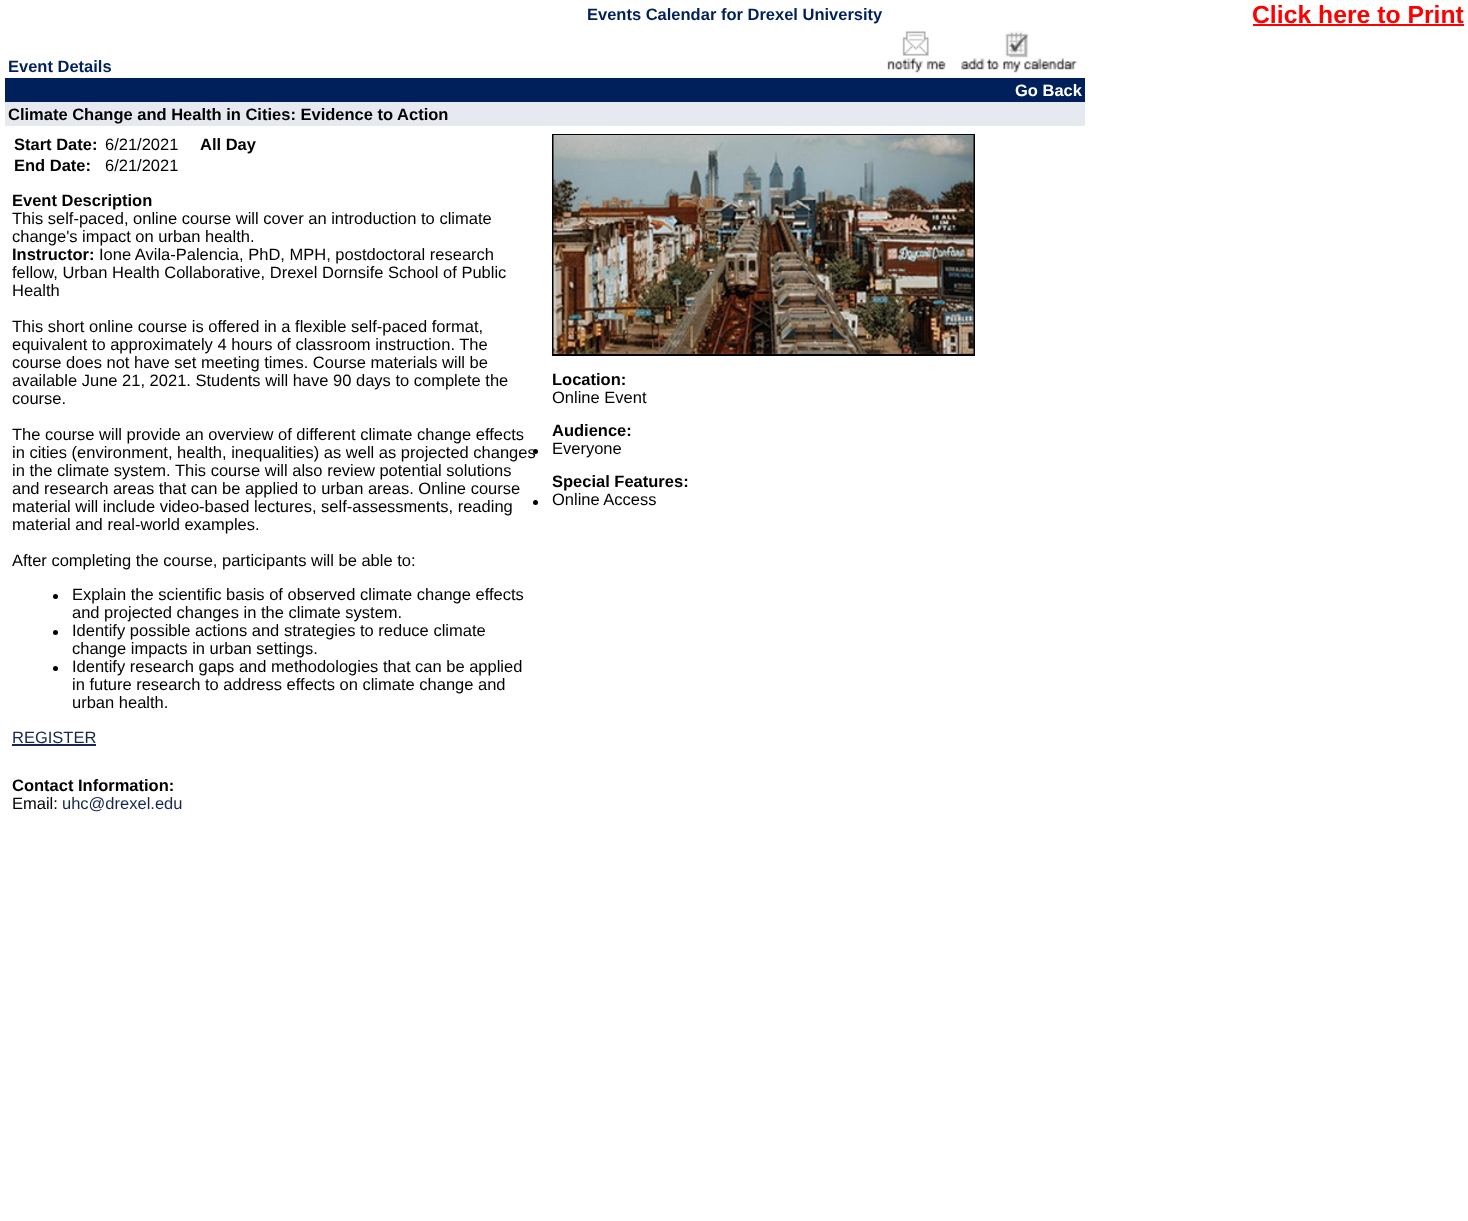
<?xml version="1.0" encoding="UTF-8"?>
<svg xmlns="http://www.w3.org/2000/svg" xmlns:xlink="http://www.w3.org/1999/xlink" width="1468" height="1221">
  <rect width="100%" height="100%" fill="#ffffff" />
  <rect x="1253" y="24" width="211" height="2" fill="#ff0000" />
  <image x="887" y="31" width="59" height="42" xlink:href="image1.png" />
  <image x="961" y="31" width="117" height="42" xlink:href="image2.png" />
  <rect x="5" y="78" width="1080" height="24" fill="#00205b" />
  <rect x="5" y="102" width="1080" height="24" fill="#e6e9ef" />
  <circle cx="55.5" cy="596.5" r="2.5" fill="#000000" />
  <circle cx="55.5" cy="632.5" r="2.5" fill="#000000" />
  <circle cx="55.5" cy="668.5" r="2.5" fill="#000000" />
  <rect x="12" y="744" width="84" height="2" fill="#15274d" />
  <rect x="553" y="135" width="421" height="220" fill="none" stroke="#000000" stroke-width="2" />
  <image x="553" y="135" width="421" height="219" xlink:href="image3.png" />
  <circle cx="535.5" cy="451.5" r="2.5" fill="#000000" />
  <circle cx="535.5" cy="502.5" r="2.5" fill="#000000" />
  <text x="587" y="20" style="font-family: Liberation Sans; font-size: 16.5px; font-weight: bold; fill: #00205b">Events Calendar for Drexel University</text>
  <text x="1252" y="23" style="font-family: Liberation Sans; font-size: 24.75px; font-weight: bold; fill: #ff0000">Click here to Print</text>
  <text x="8" y="72" style="font-family: Liberation Sans; font-size: 16.5px; font-weight: bold; fill: #00205b">Event Details</text>
  <text x="1015" y="96" style="font-family: Liberation Sans; font-size: 16.5px; font-weight: bold; fill: #ffffff">Go Back</text>
  <text x="8" y="120" style="font-family: Liberation Sans; font-size: 16.5px; font-weight: bold; fill: #000000">Climate Change and Health in Cities: Evidence to Action</text>
  <text x="14" y="150" style="font-family: Liberation Sans; font-size: 16.5px; font-weight: bold; fill: #000000">Start Date:</text>
  <text x="105" y="150" style="font-family: Liberation Sans; font-size: 16.5px; fill: #000000">6/21/2021</text>
  <text x="200" y="150" style="font-family: Liberation Sans; font-size: 16.5px; font-weight: bold; fill: #000000">All Day</text>
  <text x="14" y="171" style="font-family: Liberation Sans; font-size: 16.5px; font-weight: bold; fill: #000000">End Date:</text>
  <text x="105" y="171" style="font-family: Liberation Sans; font-size: 16.5px; fill: #000000">6/21/2021</text>
  <text x="12" y="206" style="font-family: Liberation Sans; font-size: 16.5px; font-weight: bold; fill: #000000">Event Description</text>
  <text x="12" y="224" style="font-family: Liberation Sans; font-size: 16.5px; fill: #000000">This self-paced, online course will cover an introduction to climate</text>
  <text x="12" y="242" style="font-family: Liberation Sans; font-size: 16.5px; fill: #000000">change's impact on urban health.</text>
  <text x="12" y="260" style="font-family: Liberation Sans; font-size: 16.5px; font-weight: bold; fill: #000000">Instructor:</text>
  <text x="99" y="260" style="font-family: Liberation Sans; font-size: 16.5px; fill: #000000">Ione Avila-Palencia, PhD, MPH, postdoctoral research</text>
  <text x="12" y="278" style="font-family: Liberation Sans; font-size: 16.5px; fill: #000000">fellow, Urban Health Collaborative, Drexel Dornsife School of Public</text>
  <text x="12" y="296" style="font-family: Liberation Sans; font-size: 16.5px; fill: #000000">Health</text>
  <text x="12" y="332" style="font-family: Liberation Sans; font-size: 16.5px; fill: #000000">This short online course is offered in a flexible self-paced format,</text>
  <text x="12" y="350" style="font-family: Liberation Sans; font-size: 16.5px; fill: #000000">equivalent to approximately 4 hours of classroom instruction. The</text>
  <text x="12" y="368" style="font-family: Liberation Sans; font-size: 16.5px; fill: #000000">course does not have set meeting times. Course materials will be</text>
  <text x="12" y="386" style="font-family: Liberation Sans; font-size: 16.5px; fill: #000000">available June 21, 2021. Students will have 90 days to complete the</text>
  <text x="12" y="404" style="font-family: Liberation Sans; font-size: 16.5px; fill: #000000">course.</text>
  <text x="12" y="440" style="font-family: Liberation Sans; font-size: 16.5px; fill: #000000">The course will provide an overview of different climate change effects</text>
  <text x="12" y="458" style="font-family: Liberation Sans; font-size: 16.5px; fill: #000000">in cities (environment, health, inequalities) as well as projected changes</text>
  <text x="12" y="476" style="font-family: Liberation Sans; font-size: 16.5px; fill: #000000">in the climate system. This course will also review potential solutions</text>
  <text x="12" y="494" style="font-family: Liberation Sans; font-size: 16.5px; fill: #000000">and research areas that can be applied to urban areas. Online course</text>
  <text x="12" y="512" style="font-family: Liberation Sans; font-size: 16.5px; fill: #000000">material will include video-based lectures, self-assessments, reading</text>
  <text x="12" y="530" style="font-family: Liberation Sans; font-size: 16.5px; fill: #000000">material and real-world examples.</text>
  <text x="12" y="566" style="font-family: Liberation Sans; font-size: 16.5px; fill: #000000">After completing the course, participants will be able to:</text>
  <text x="72" y="600" style="font-family: Liberation Sans; font-size: 16.5px; fill: #000000">Explain the scientific basis of observed climate change effects</text>
  <text x="72" y="618" style="font-family: Liberation Sans; font-size: 16.5px; fill: #000000">and projected changes in the climate system.</text>
  <text x="72" y="636" style="font-family: Liberation Sans; font-size: 16.5px; fill: #000000">Identify possible actions and strategies to reduce climate</text>
  <text x="72" y="654" style="font-family: Liberation Sans; font-size: 16.5px; fill: #000000">change impacts in urban settings.</text>
  <text x="72" y="672" style="font-family: Liberation Sans; font-size: 16.5px; fill: #000000">Identify research gaps and methodologies that can be applied</text>
  <text x="72" y="690" style="font-family: Liberation Sans; font-size: 16.5px; fill: #000000">in future research to address effects on climate change and</text>
  <text x="72" y="708" style="font-family: Liberation Sans; font-size: 16.5px; fill: #000000">urban health.</text>
  <text x="12" y="743" style="font-family: Liberation Sans; font-size: 16.5px; fill: #15274d">REGISTER</text>
  <text x="12" y="791" style="font-family: Liberation Sans; font-size: 16.5px; font-weight: bold; fill: #000000">Contact Information:</text>
  <text x="12" y="809" style="font-family: Liberation Sans; font-size: 16.5px; fill: #000000">Email:</text>
  <text x="62" y="809" style="font-family: Liberation Sans; font-size: 16.5px; fill: #15274d">uhc@drexel.edu</text>
  <text x="552" y="385" style="font-family: Liberation Sans; font-size: 16.5px; font-weight: bold; fill: #000000">Location:</text>
  <text x="552" y="403" style="font-family: Liberation Sans; font-size: 16.5px; fill: #000000">Online Event</text>
  <text x="552" y="436" style="font-family: Liberation Sans; font-size: 16.5px; font-weight: bold; fill: #000000">Audience:</text>
  <text x="552" y="454" style="font-family: Liberation Sans; font-size: 16.5px; fill: #000000">Everyone</text>
  <text x="552" y="487" style="font-family: Liberation Sans; font-size: 16.5px; font-weight: bold; fill: #000000">Special Features:</text>
  <text x="552" y="505" style="font-family: Liberation Sans; font-size: 16.5px; fill: #000000">Online Access</text>
</svg>
